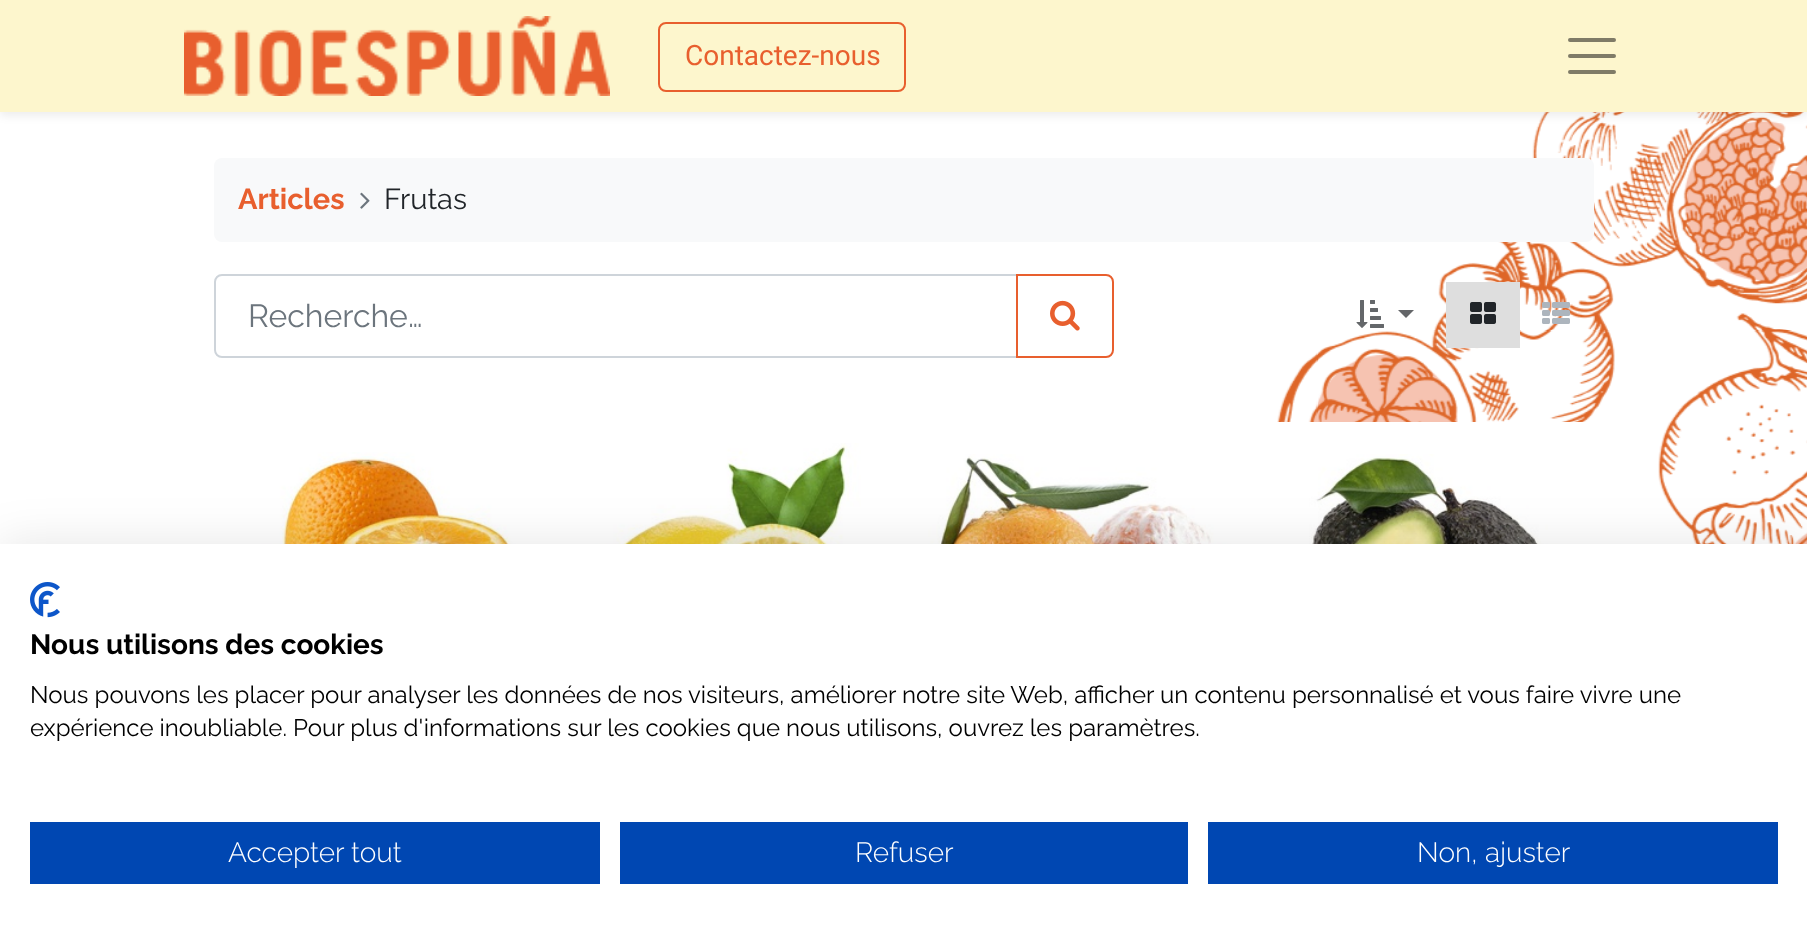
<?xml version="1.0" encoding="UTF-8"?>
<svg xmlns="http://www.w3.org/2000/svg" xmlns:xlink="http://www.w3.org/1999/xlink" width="1807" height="937">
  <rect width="100%" height="100%" fill="#ffffff" />
  <image x="1277" y="112" width="530" height="432" xlink:href="image1.png" />
  <rect y="4" width="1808" height="112" fill="#000000" fill-opacity="0.07" filter="blur(4px)" />
  <rect width="1807" height="112" fill="#fdf6cd" />
  <image x="184" y="16" width="426" height="80" xlink:href="image2.png" />
  <rect x="659" y="23" width="246" height="68" rx="7" fill="none" stroke="#e85f2e" stroke-width="2" />
  <path d="M 1570 40 h 44 m -44 16 h 44 m -44 16 h 44" fill="none" stroke="#7f7b67" stroke-width="4" stroke-linecap="round" />
  <rect x="214" y="158" width="1380" height="84" rx="8" fill="#f8f9fa" />
  <image x="360" y="192" width="10" height="17" xlink:href="image3.png" />
  <path d="M 222 275 h 795 v 82 h -795 c -4 0 -7 -3 -7 -7 v -68 c 0 -4 3 -7 7 -7 z" fill="none" stroke="#ced4da" stroke-width="2" />
  <path d="M 1017 275 h 89 c 4 0 7 3 7 7 v 68 c 0 4 -3 7 -7 7 h -89 z" fill="none" stroke="#e85f2e" stroke-width="2" />
  <image x="1050" y="300" width="30" height="31" xlink:href="image4.png" />
  <image x="1356" y="300" width="28" height="28" xlink:href="image5.png" />
  <path d="M 1398 310 h 16 l -8 8 z" fill="#646669" />
  <rect x="1446" y="282" width="74" height="66" fill="#dedede" />
  <image x="1470" y="302" width="26" height="22" xlink:href="image6.png" />
  <image x="1542" y="302" width="28" height="22" xlink:href="image7.png" />
  <image x="224" y="452" width="292" height="92" xlink:href="image8.png" />
  <image x="595" y="443" width="266" height="101" xlink:href="image9.png" />
  <image x="928" y="454" width="304" height="90" xlink:href="image10.png" />
  <rect x="1277" y="422" width="308" height="115" fill="#ffffff" />
  <image x="1309" y="454" width="253" height="90" xlink:href="image11.png" />
  <rect y="544" width="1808" height="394" fill="#000000" fill-opacity="0.1" filter="blur(24px)" />
  <rect y="544" width="1807" height="393" fill="#ffffff" />
  <image x="30" y="582" width="30" height="36" xlink:href="image12.png" />
  <rect x="30" y="822" width="570" height="62" fill="#0047b2" />
  <rect x="620" y="822" width="568" height="62" fill="#0047b2" />
  <rect x="1208" y="822" width="570" height="62" fill="#0047b2" />
  <text x="685" y="65" style="font-family: Roboto; font-size: 28px; fill: #e85f2e">Contactez-nous</text>
  <text x="238" y="209" style="font-family: Raleway; font-size: 29px; font-weight: bold; fill: #e85f2e">Articles</text>
  <text x="384" y="209" style="font-family: Raleway; font-size: 29px; fill: #212529">Frutas</text>
  <text x="248" y="327" style="font-family: Raleway; font-size: 32px; fill: #6c757d">Recherche…</text>
  <text x="30" y="654" style="font-family: Raleway; font-size: 28px; font-weight: bold; fill: #000000">Nous utilisons des cookies</text>
  <text x="30" y="703" style="font-family: Raleway; font-size: 24px; fill: #000000">Nous pouvons les placer pour analyser les données de nos visiteurs, améliorer notre site Web, afficher un contenu personnalisé et vous faire vivre une</text>
  <text x="30" y="736" style="font-family: Raleway; font-size: 24px; fill: #000000">expérience inoubliable. Pour plus d'informations sur les cookies que nous utilisons, ouvrez les paramètres.</text>
  <text x="228" y="862" style="font-family: Raleway; font-size: 28px; font-weight: 300; fill: #ffffff">Accepter tout</text>
  <text x="855" y="862" style="font-family: Raleway; font-size: 28px; font-weight: 300; fill: #ffffff">Refuser</text>
  <text x="1417" y="862" style="font-family: Raleway; font-size: 28px; font-weight: 300; fill: #ffffff">Non, ajuster</text>
</svg>
